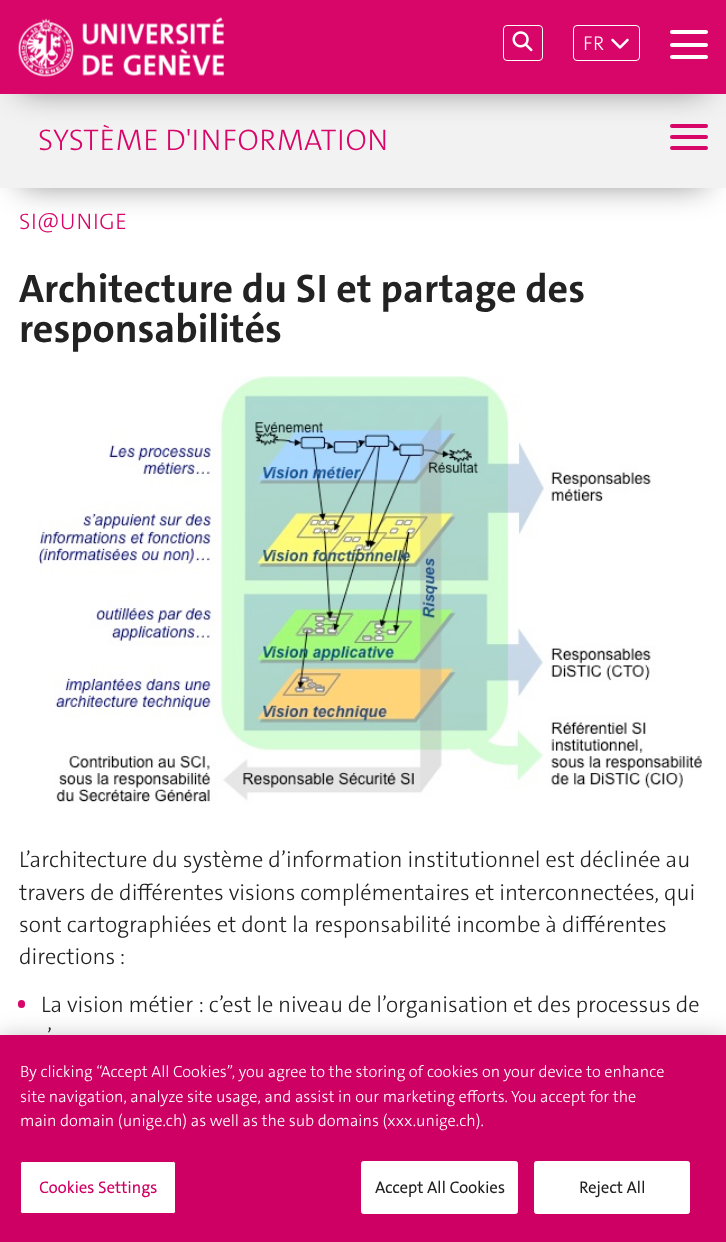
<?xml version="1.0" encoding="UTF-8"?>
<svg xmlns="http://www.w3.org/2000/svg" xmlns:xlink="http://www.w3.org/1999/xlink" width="726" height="1242">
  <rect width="100%" height="100%" fill="#ffffff" />
  <rect x="21" y="131" width="684" height="53" fill="#000000" fill-opacity="0.5" filter="blur(16px)" />
  <rect y="94" width="726" height="94" fill="#f2f2f2" />
  <rect x="670" y="135" width="38" height="4" rx="2" fill="#d80669" />
  <rect x="670" y="124" width="38" height="4" rx="2" fill="#d80669" />
  <rect x="21" y="38" width="684" height="51" fill="#000000" fill-opacity="0.5" filter="blur(16px)" />
  <rect width="726" height="94" fill="#d80669" />
  <image x="18" y="17" width="206" height="60" xlink:href="image1.png" />
  <rect x="503.5" y="25.5" width="39" height="35" rx="3.5" fill="none" stroke="#ffffff" />
  <image x="512" y="31" width="21" height="21" xlink:href="image2.png" />
  <rect x="573.5" y="25.5" width="66" height="35" rx="3.5" fill="none" stroke="#ffffff" />
  <image x="611" y="38" width="18" height="11" xlink:href="image3.png" />
  <rect x="670" y="30" width="38" height="4" rx="2" fill="#ffffff" />
  <rect x="670" y="43" width="38" height="4" rx="2" fill="#ffffff" />
  <rect x="670" y="55" width="38" height="4" rx="2" fill="#ffffff" />
  <rect x="670" y="146" width="38" height="4" rx="2" fill="#d80669" />
  <image x="37" y="376" width="665" height="428" xlink:href="image4.png" />
  <rect x="18" y="1000" width="7" height="8" rx="3.5" fill="#d80669" />
  <rect y="1035" width="726" height="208" fill="#000000" fill-opacity="0.2" filter="blur(11px)" />
  <rect y="1035" width="726" height="207" fill="#cf0063" />
  <rect x="20.5" y="1161.5" width="155" height="52" rx="2" fill="#ffffff" stroke="#cf0063" />
  <rect x="361.5" y="1161.5" width="156" height="52" rx="2" fill="#ffffff" stroke="#ffffff" />
  <rect x="534.5" y="1161.5" width="155" height="52" rx="2" fill="#ffffff" stroke="#ffffff" />
  <text x="583" y="50" style="font-family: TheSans; font-size: 20px; font-weight: 300; fill: #ffffff">FR</text>
  <text x="38" y="150" style="font-family: TheSans; font-size: 30px; font-weight: 300; fill: #d80669">SYSTÈME D'INFORMATION</text>
  <text x="19" y="229" style="font-family: TheSans; font-size: 22.5px; font-weight: 300; fill: #d80669">SI@UNIGE</text>
  <text x="19" y="302" style="font-family: TheSans; font-size: 40px; font-weight: bold; fill: #222222">Architecture du SI et partage des</text>
  <text x="19" y="342" style="font-family: TheSans; font-size: 40px; font-weight: bold; fill: #222222">responsabilités</text>
  <text x="19" y="867" style="font-family: TheSans; font-size: 22.5px; font-weight: 300; fill: #222222">L’architecture du système d’information institutionnel est déclinée au</text>
  <text x="19" y="900" style="font-family: TheSans; font-size: 22.5px; font-weight: 300; fill: #222222">travers de différentes visions complémentaires et interconnectées, qui</text>
  <text x="19" y="932" style="font-family: TheSans; font-size: 22.5px; font-weight: 300; fill: #222222">sont cartographiées et dont la responsabilité incombe à différentes</text>
  <text x="19" y="964" word-spacing="-1" style="font-family: TheSans; font-size: 22.5px; font-weight: 300; fill: #222222">directions :</text>
  <text x="41" y="1012" word-spacing="-0.25" style="font-family: TheSans; font-size: 22.5px; font-weight: 300; fill: #222222">La vision métier : c’est le niveau de l’organisation et des processus de</text>
  <text x="47" y="1044" style="font-family: TheSans; font-size: 22.5px; font-weight: 300; fill: #222222">’</text>
  <text x="20" y="1077" style="font-family: TheSans; font-size: 16.25px; font-weight: 300; fill: #ffffff">By clicking “Accept All Cookies”, you agree to the storing of cookies on your device to enhance</text>
  <text x="20" y="1102" style="font-family: TheSans; font-size: 16.25px; font-weight: 300; fill: #ffffff">site navigation, analyze site usage, and assist in our marketing efforts. You accept for the</text>
  <text x="20" y="1126" style="font-family: TheSans; font-size: 16.25px; font-weight: 300; fill: #ffffff">main domain (unige.ch) as well as the sub domains (xxx.unige.ch).</text>
  <text x="39" y="1193" style="font-family: 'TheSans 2'; font-size: 16.25px; font-weight: bold; letter-spacing: 0.2px; fill: #cf0063">Cookies Settings</text>
  <text x="375" y="1193" style="font-family: 'TheSans 2'; font-size: 16.25px; font-weight: bold; letter-spacing: 0.2px; fill: #222222">Accept All Cookies</text>
  <text x="579" y="1193" style="font-family: 'TheSans 2'; font-size: 16.25px; font-weight: bold; letter-spacing: 0.2px; fill: #222222">Reject All</text>
</svg>
